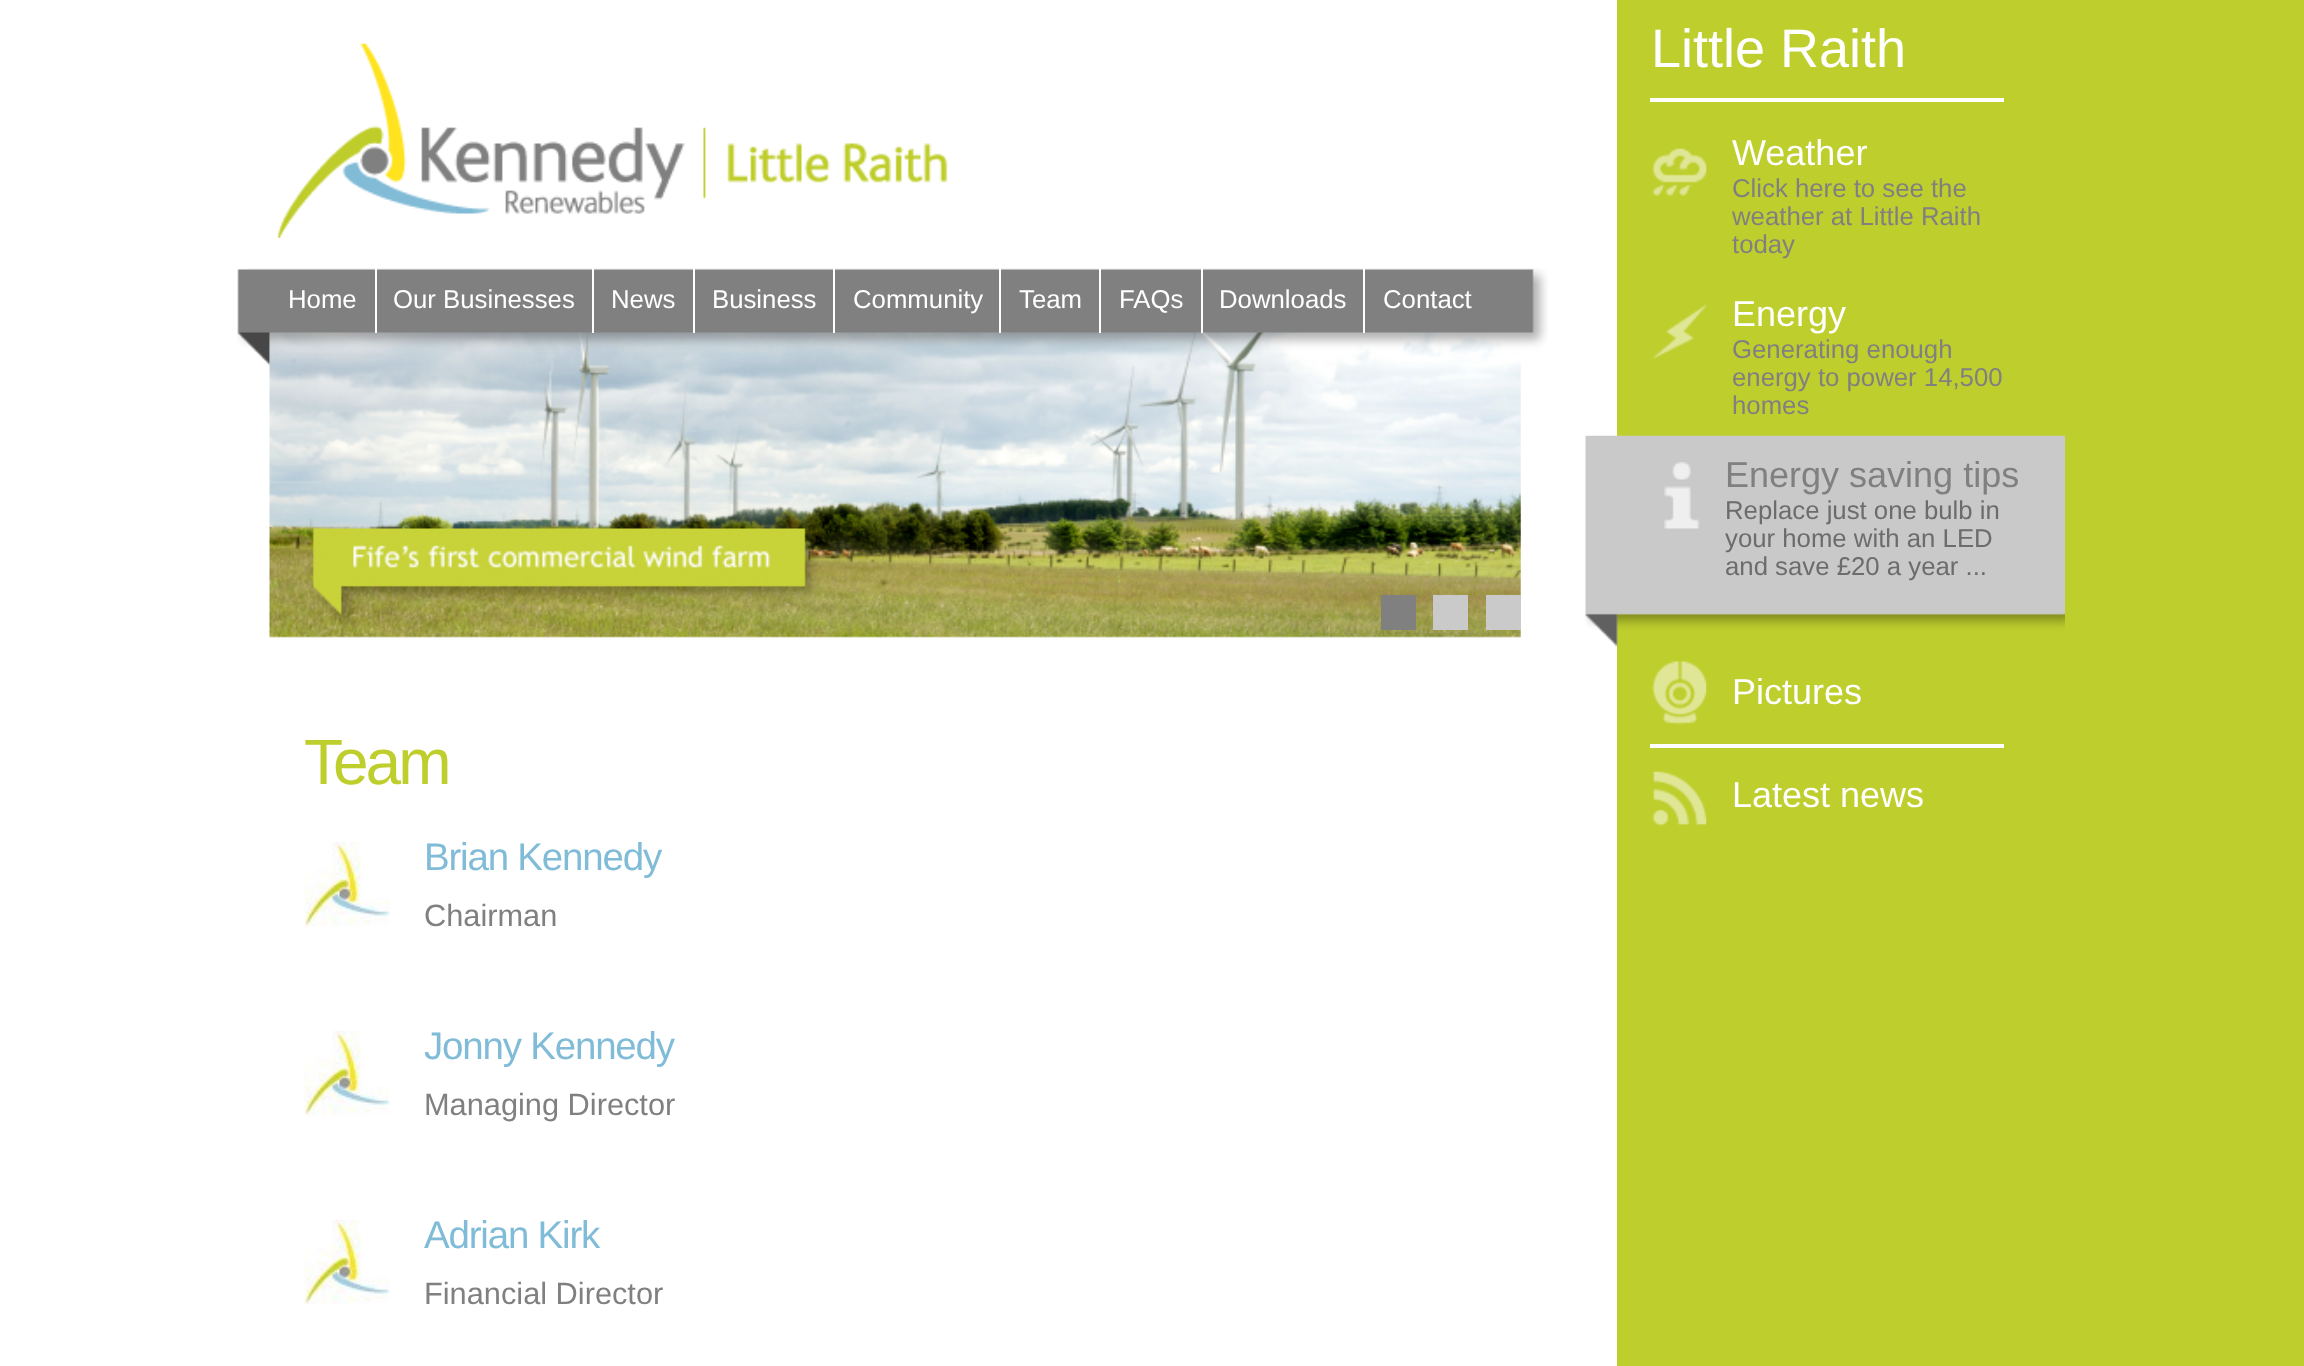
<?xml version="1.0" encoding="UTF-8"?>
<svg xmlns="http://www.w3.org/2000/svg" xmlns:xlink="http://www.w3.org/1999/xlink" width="2304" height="1366">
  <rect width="100%" height="100%" fill="#ffffff" />
  <rect x="1617" width="687" height="1366" fill="#bece2d" />
  <image x="277" y="43" width="671" height="195" xlink:href="image1.png" />
  <image x="269" y="332" width="1252" height="306" xlink:href="image3.png" />
  <image x="237" y="268" width="1311" height="97" xlink:href="image2.png" />
  <rect x="375" y="268" width="2" height="65" fill="#ffffff" />
  <rect x="592" y="268" width="2" height="65" fill="#ffffff" />
  <rect x="693" y="268" width="2" height="65" fill="#ffffff" />
  <rect x="833" y="268" width="2" height="65" fill="#ffffff" />
  <rect x="999" y="268" width="2" height="65" fill="#ffffff" />
  <rect x="1099" y="268" width="2" height="65" fill="#ffffff" />
  <rect x="1201" y="268" width="2" height="65" fill="#ffffff" />
  <rect x="1363" y="268" width="2" height="65" fill="#ffffff" />
  <rect x="1381" y="595" width="35" height="35" fill="#808080" />
  <rect x="1433" y="595" width="35" height="35" fill="#cacaca" />
  <rect x="1486" y="595" width="35" height="35" fill="#cacaca" />
  <image x="304" y="841" width="87" height="86" xlink:href="image4.png" />
  <image x="304" y="1030" width="87" height="86" xlink:href="image4.png" />
  <image x="304" y="1219" width="87" height="86" xlink:href="image4.png" />
  <rect x="1650" y="98" width="354" height="4" fill="#ffffff" />
  <image x="1652" y="148" width="55" height="48" xlink:href="image5.png" />
  <image x="1652" y="304" width="55" height="55" xlink:href="image6.png" />
  <image x="1585" y="435" width="480" height="212" xlink:href="image7.png" />
  <image x="1664" y="462" width="36" height="67" xlink:href="image8.png" />
  <image x="1652" y="661" width="55" height="64" xlink:href="image9.png" />
  <rect x="1650" y="744" width="354" height="4" fill="#ffffff" />
  <image x="1652" y="771" width="55" height="55" xlink:href="image10.png" />
  <text x="288" y="308" style="font-family: Liberation Sans; font-size: 25.75px; fill: #ffffff">Home</text>
  <text x="393" y="308" style="font-family: Liberation Sans; font-size: 25.75px; fill: #ffffff">Our Businesses</text>
  <text x="611" y="308" style="font-family: Liberation Sans; font-size: 25.75px; fill: #ffffff">News</text>
  <text x="712" y="308" style="font-family: Liberation Sans; font-size: 25.75px; fill: #ffffff">Business</text>
  <text x="853" y="308" style="font-family: Liberation Sans; font-size: 25.75px; fill: #ffffff">Community</text>
  <text x="1019" y="308" style="font-family: Liberation Sans; font-size: 25.75px; fill: #ffffff">Team</text>
  <text x="1119" y="308" style="font-family: Liberation Sans; font-size: 25.75px; fill: #ffffff">FAQs</text>
  <text x="1219" y="308" style="font-family: Liberation Sans; font-size: 25.75px; fill: #ffffff">Downloads</text>
  <text x="1383" y="308" style="font-family: Liberation Sans; font-size: 25.75px; fill: #ffffff">Contact</text>
  <text x="304" y="784" style="font-family: Liberation Sans; font-size: 64px; letter-spacing: -3px; fill: #bece2d">Team</text>
  <text x="424" y="870" style="font-family: Liberation Sans; font-size: 38.5px; letter-spacing: -1.2px; fill: #80bcd8">Brian Kennedy</text>
  <text x="424" y="926" style="font-family: Liberation Sans; font-size: 30.75px; fill: #808080">Chairman</text>
  <text x="424" y="1059" style="font-family: Liberation Sans; font-size: 38.5px; letter-spacing: -1.2px; fill: #80bcd8">Jonny Kennedy</text>
  <text x="424" y="1115" style="font-family: Liberation Sans; font-size: 30.75px; fill: #808080">Managing Director</text>
  <text x="424" y="1248" style="font-family: Liberation Sans; font-size: 38.5px; letter-spacing: -1.2px; fill: #80bcd8">Adrian Kirk</text>
  <text x="424" y="1304" style="font-family: Liberation Sans; font-size: 30.75px; fill: #808080">Financial Director</text>
  <text x="1651" y="67" style="font-family: Liberation Sans; font-size: 54px; fill: #ffffff">Little Raith</text>
  <text x="1732" y="165" style="font-family: Liberation Sans; font-size: 36px; fill: #ffffff">Weather</text>
  <text x="1732" y="197" style="font-family: Liberation Sans; font-size: 25.75px; fill: #808080">Click here to see the</text>
  <text x="1732" y="225" style="font-family: Liberation Sans; font-size: 25.75px; fill: #808080">weather at Little Raith</text>
  <text x="1732" y="253" style="font-family: Liberation Sans; font-size: 25.75px; fill: #808080">today</text>
  <text x="1732" y="326" style="font-family: Liberation Sans; font-size: 36px; fill: #ffffff">Energy</text>
  <text x="1732" y="358" style="font-family: Liberation Sans; font-size: 25.75px; fill: #808080">Generating enough</text>
  <text x="1732" y="386" style="font-family: Liberation Sans; font-size: 25.75px; fill: #808080">energy to power 14,500</text>
  <text x="1732" y="414" style="font-family: Liberation Sans; font-size: 25.75px; fill: #808080">homes</text>
  <text x="1725" y="487" style="font-family: Liberation Sans; font-size: 36px; fill: #808080">Energy saving tips</text>
  <text x="1725" y="519" style="font-family: Liberation Sans; font-size: 25.75px; fill: #6c6c6c">Replace just one bulb in</text>
  <text x="1725" y="547" style="font-family: Liberation Sans; font-size: 25.75px; fill: #6c6c6c">your home with an LED</text>
  <text x="1725" y="575" style="font-family: Liberation Sans; font-size: 25.75px; fill: #6c6c6c">and save £20 a year ...</text>
  <text x="1732" y="704" style="font-family: Liberation Sans; font-size: 36px; fill: #ffffff">Pictures</text>
  <text x="1732" y="807" style="font-family: Liberation Sans; font-size: 36px; fill: #ffffff">Latest news</text>
</svg>
